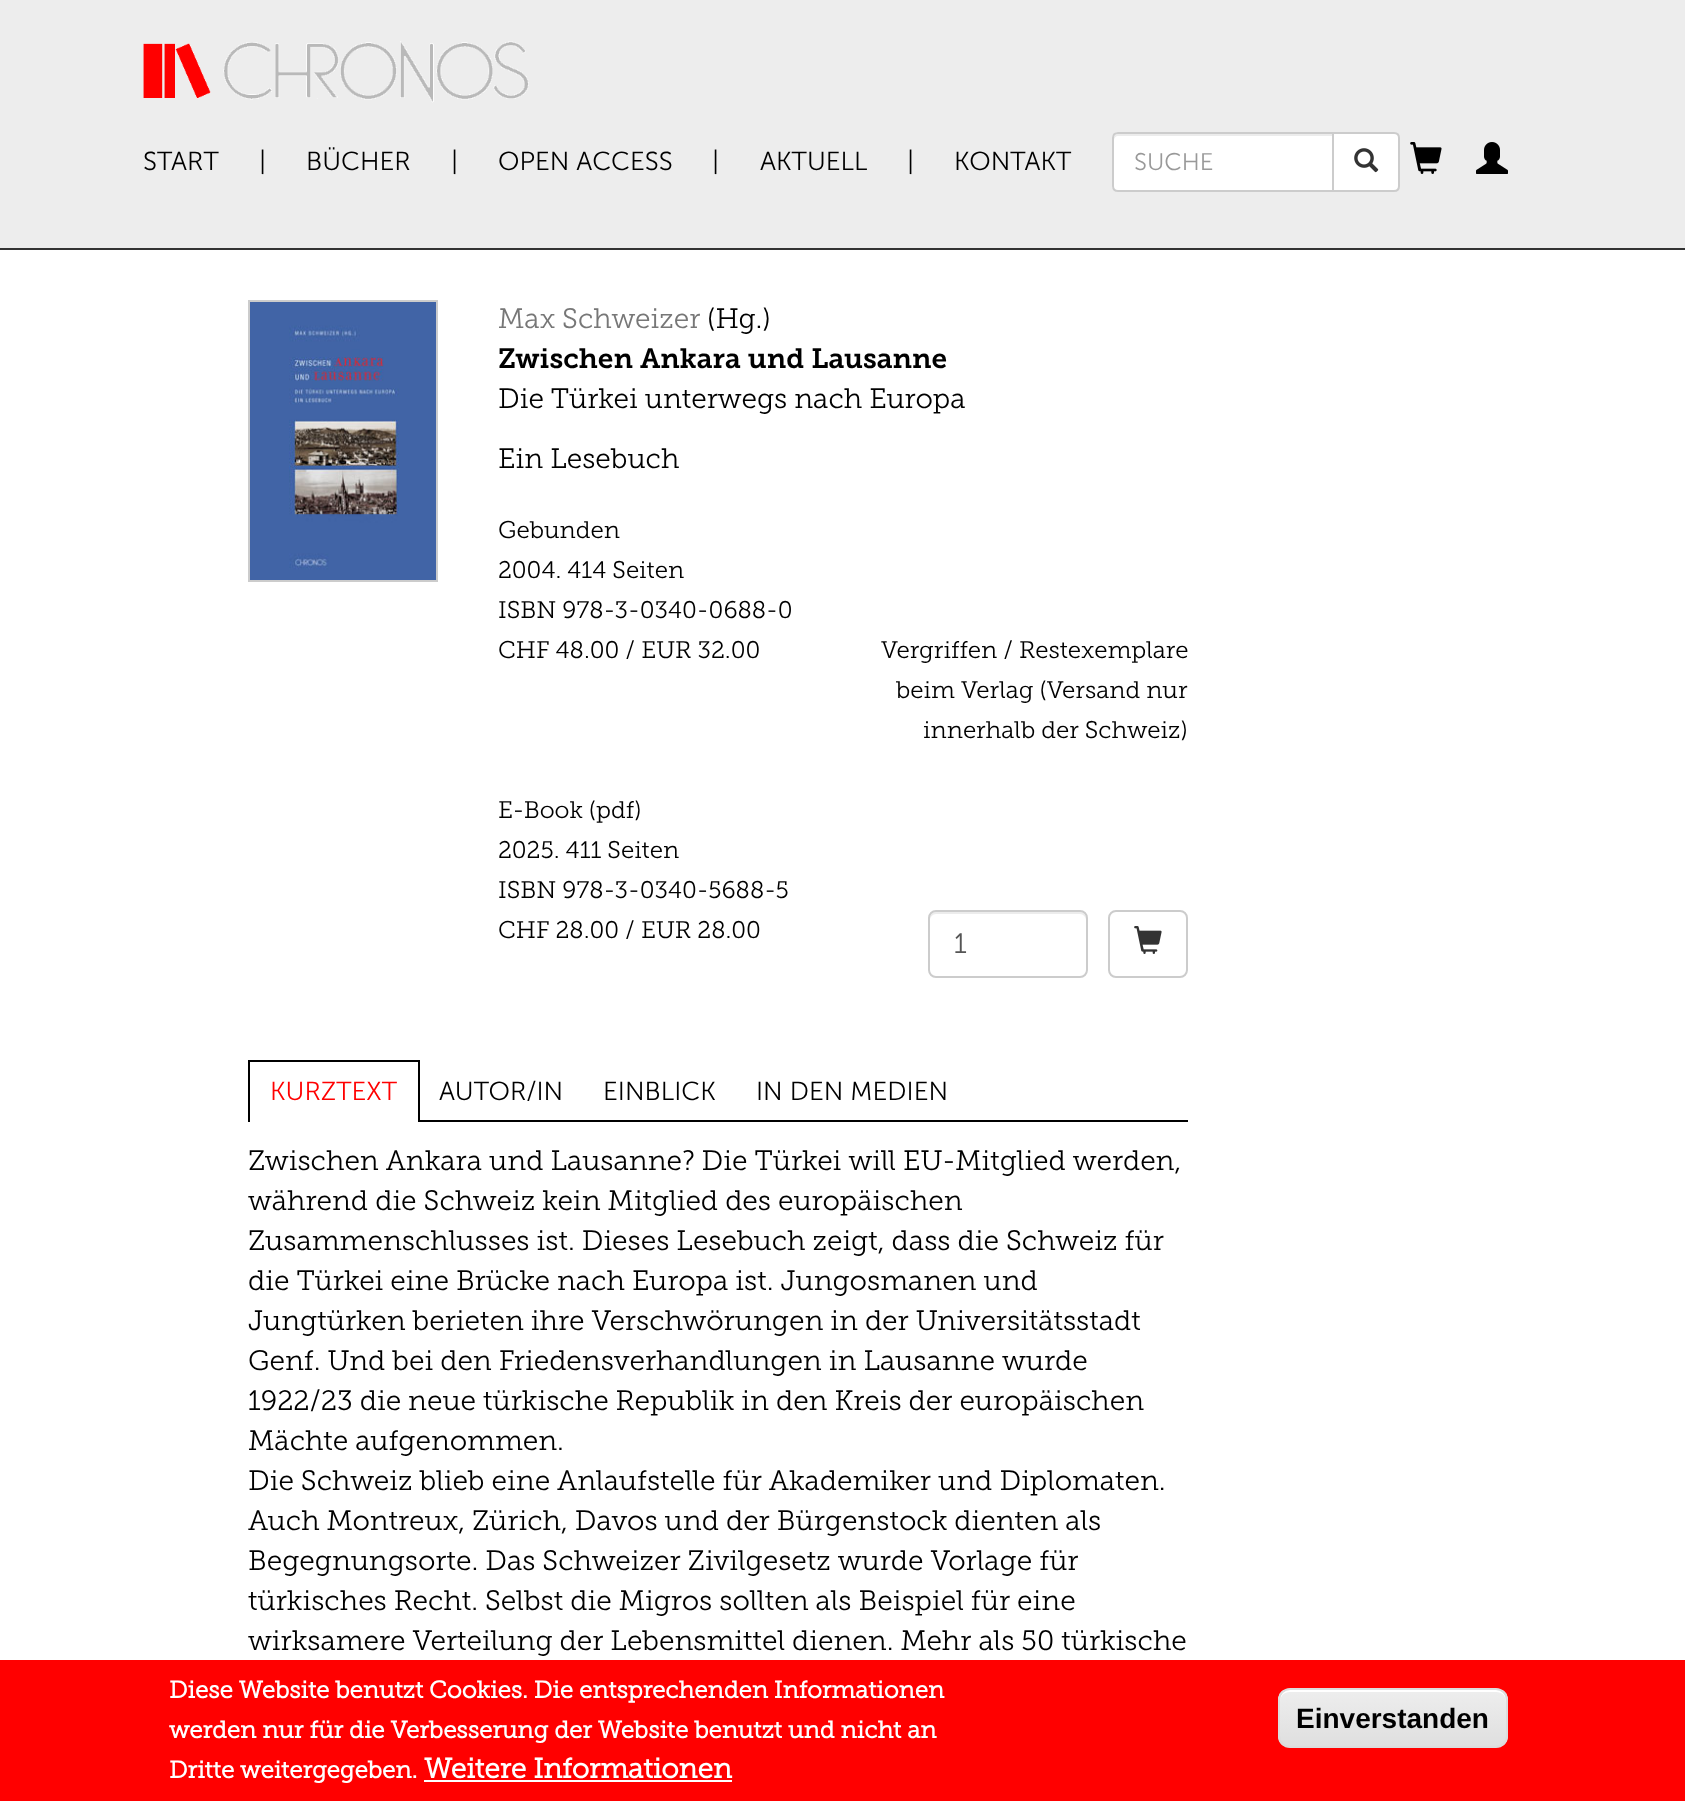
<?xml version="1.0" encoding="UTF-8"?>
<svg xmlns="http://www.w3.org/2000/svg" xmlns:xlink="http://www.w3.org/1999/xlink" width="1685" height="1801">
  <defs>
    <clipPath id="clip1"><rect x="1278" y="1688" width="230" height="60" rx="12" /></clipPath>
    <linearGradient id="g1" gradientUnits="userSpaceOnUse" x1="1393" y1="1690" x2="1393" y2="1746"><stop offset="0.05" stop-color="#ededed" /><stop offset="1" stop-color="#dfdfdf" /></linearGradient>
  </defs>
  <rect width="100%" height="100%" fill="#ffffff" />
  <rect width="1685" height="248" fill="#ededed" />
  <rect y="248" width="1685" height="2" fill="#333333" />
  <image x="143" y="41" width="386" height="62" xlink:href="image1.png" />
  <path d="M 1118 132 h 216 v 60 h -216 c -3.5 0 -6 -2.5 -6 -6 v -48 c 0 -3.5 2.5 -6 6 -6 z" fill="#ffffff" />
  <path d="M 1118 136 h 214 v -2 h -214 c -4 0 -4 3 -4 6 c 0 -2 2 -4 4 -4 z" fill="#ececec" />
  <path d="M 1118 133 h 215 v 58 h -215 c -3 0 -5 -2 -5 -5 v -48 c 0 -3 2 -5 5 -5 z" fill="none" stroke="#cccccc" stroke-width="2" />
  <path d="M 1333 133 h 61 c 3 0 5 2 5 5 v 48 c 0 3 -2 5 -5 5 h -61 z" fill="#ffffff" stroke="#cccccc" stroke-width="2" />
  <image x="1354" y="148" width="25" height="25" xlink:href="image2.png" />
  <image x="1410" y="142" width="32" height="32" xlink:href="image3.png" />
  <image x="1476" y="142" width="32" height="32" xlink:href="image4.png" />
  <rect x="249" y="301" width="188" height="280" fill="none" stroke="#cccccc" stroke-width="2" />
  <image x="250" y="302" width="186" height="278" xlink:href="image5.png" />
  <path d="M 936 914 h 144 c 3 0 6 3 6 6 v -2 c 0 -3 -3 -6 -6 -6 h -144 c -3 0 -6 3 -6 6 v 2 c 0 -3 3 -6 6 -6 z" fill="#ececec" />
  <rect x="929" y="911" width="158" height="66" rx="7" fill="none" stroke="#cccccc" stroke-width="2" />
  <rect x="1109" y="911" width="78" height="66" rx="7" fill="none" stroke="#cccccc" stroke-width="2" />
  <image x="1134" y="926" width="28" height="28" xlink:href="image6.png" />
  <rect x="420" y="1120" width="768" height="2" fill="#000000" />
  <rect x="248" y="1060" width="172" height="2" fill="#000000" />
  <rect x="418" y="1060" width="2" height="62" fill="#000000" />
  <rect x="248" y="1060" width="2" height="62" fill="#000000" />
  <rect y="1660" width="1685" height="141" fill="#ff0000" />
  <rect x="424" y="1780" width="308" height="2" fill="#ffffff" />
  <g clip-path="url(#clip1)">
    <rect x="1278" y="1690" width="230" height="56" fill="url(#g1)" />
  </g>
  <path d="M 1290 1692 h 206 c 6 0 10 4 10 10 v -2 c 0 -6 -4 -10 -10 -10 h -206 c -6 0 -10 4 -10 10 v 2 c 0 -6 4 -10 10 -10 z" fill="#ffffff" />
  <rect x="1279" y="1689" width="228" height="58" rx="11" fill="none" stroke="#dcdcdc" stroke-width="2" />
  <text x="143" y="170" style="font-family: Museo Sans; font-size: 26px; font-weight: 300; fill: #000000">START</text>
  <text x="259" y="170" style="font-family: Museo Sans; font-size: 26px; font-weight: 300; fill: #000000">|</text>
  <text x="306" y="170" style="font-family: Museo Sans; font-size: 26px; font-weight: 300; fill: #000000">BÜCHER</text>
  <text x="451" y="170" style="font-family: Museo Sans; font-size: 26px; font-weight: 300; fill: #000000">|</text>
  <text x="498" y="170" style="font-family: Museo Sans; font-size: 26px; font-weight: 300; fill: #000000">OPEN ACCESS</text>
  <text x="712" y="170" style="font-family: Museo Sans; font-size: 26px; font-weight: 300; fill: #000000">|</text>
  <text x="760" y="170" style="font-family: Museo Sans; font-size: 26px; font-weight: 300; fill: #000000">AKTUELL</text>
  <text x="907" y="170" style="font-family: Museo Sans; font-size: 26px; font-weight: 300; fill: #000000">|</text>
  <text x="954" y="170" style="font-family: Museo Sans; font-size: 26px; font-weight: 300; fill: #000000">KONTAKT</text>
  <text x="1134" y="170" style="font-family: Museo Sans; font-size: 24px; font-weight: 300; fill: #999999">SUCHE</text>
  <text x="498" y="328" style="font-family: Museo Slab; font-size: 28px; font-weight: 300; fill: #777777">Max Schweizer</text>
  <text x="707" y="328" style="font-family: Museo Slab; font-size: 28px; font-weight: 300; fill: #000000">(Hg.)</text>
  <text x="498" y="368" style="font-family: Museo Slab; font-size: 28px; font-weight: 600; fill: #000000">Zwischen Ankara und Lausanne</text>
  <text x="498" y="408" style="font-family: Museo Slab; font-size: 28px; font-weight: 300; fill: #000000">Die Türkei unterwegs nach Europa</text>
  <text x="498" y="468" style="font-family: Museo Slab; font-size: 28px; font-weight: 300; fill: #000000">Ein Lesebuch</text>
  <text x="498" y="538" style="font-family: Museo Slab; font-size: 24px; font-weight: 300; fill: #000000">Gebunden</text>
  <text x="498" y="578" style="font-family: Museo Slab; font-size: 24px; font-weight: 300; fill: #000000">2004. 414 Seiten</text>
  <text x="498" y="618" style="font-family: Museo Slab; font-size: 24px; font-weight: 300; fill: #000000">ISBN 978-3-0340-0688-0</text>
  <text x="498" y="658" style="font-family: Museo Slab; font-size: 24px; font-weight: 300; fill: #000000">CHF 48.00 / EUR 32.00</text>
  <text x="881" y="658" style="font-family: Museo Slab; font-size: 24px; font-weight: 300; fill: #000000">Vergriffen / Restexemplare</text>
  <text x="896" y="698" style="font-family: Museo Slab; font-size: 24px; font-weight: 300; fill: #000000">beim Verlag (Versand nur</text>
  <text x="923" y="738" style="font-family: Museo Slab; font-size: 24px; font-weight: 300; fill: #000000">innerhalb der Schweiz)</text>
  <text x="498" y="818" style="font-family: Museo Slab; font-size: 24px; font-weight: 300; fill: #000000">E-Book (pdf)</text>
  <text x="498" y="858" style="font-family: Museo Slab; font-size: 24px; font-weight: 300; fill: #000000">2025. 411 Seiten</text>
  <text x="498" y="898" style="font-family: Museo Slab; font-size: 24px; font-weight: 300; fill: #000000">ISBN 978-3-0340-5688-5</text>
  <text x="498" y="938" style="font-family: Museo Slab; font-size: 24px; font-weight: 300; fill: #000000">CHF 28.00 / EUR 28.00</text>
  <text x="954" y="953" style="font-family: Museo Slab; font-size: 28px; font-weight: 300; fill: #555555">1</text>
  <text x="270" y="1100" style="font-family: Museo Sans; font-size: 26px; font-weight: 300; fill: #ff0000">KURZTEXT</text>
  <text x="439" y="1100" style="font-family: Museo Sans; font-size: 26px; font-weight: 300; fill: #000000">AUTOR/IN</text>
  <text x="603" y="1100" style="font-family: Museo Sans; font-size: 26px; font-weight: 300; fill: #000000">EINBLICK</text>
  <text x="756" y="1100" style="font-family: Museo Sans; font-size: 26px; font-weight: 300; fill: #000000">IN DEN MEDIEN</text>
  <text x="248" y="1170" style="font-family: Museo Slab; font-size: 28px; font-weight: 300; fill: #000000">Zwischen Ankara und Lausanne? Die Türkei will EU-Mitglied werden,</text>
  <text x="248" y="1210" style="font-family: Museo Slab; font-size: 28px; font-weight: 300; fill: #000000">während die Schweiz kein Mitglied des europäischen</text>
  <text x="248" y="1250" style="font-family: Museo Slab; font-size: 28px; font-weight: 300; fill: #000000">Zusammenschlusses ist. Dieses Lesebuch zeigt, dass die Schweiz für</text>
  <text x="248" y="1290" style="font-family: Museo Slab; font-size: 28px; font-weight: 300; fill: #000000">die Türkei eine Brücke nach Europa ist. Jungosmanen und</text>
  <text x="248" y="1330" style="font-family: Museo Slab; font-size: 28px; font-weight: 300; fill: #000000">Jungtürken berieten ihre Verschwörungen in der Universitätsstadt</text>
  <text x="248" y="1370" style="font-family: Museo Slab; font-size: 28px; font-weight: 300; fill: #000000">Genf. Und bei den Friedensverhandlungen in Lausanne wurde</text>
  <text x="248" y="1410" style="font-family: Museo Slab; font-size: 28px; font-weight: 300; fill: #000000">1922/23 die neue türkische Republik in den Kreis der europäischen</text>
  <text x="248" y="1450" style="font-family: Museo Slab; font-size: 28px; font-weight: 300; fill: #000000">Mächte aufgenommen.</text>
  <text x="248" y="1490" style="font-family: Museo Slab; font-size: 28px; font-weight: 300; fill: #000000">Die Schweiz blieb eine Anlaufstelle für Akademiker und Diplomaten.</text>
  <text x="248" y="1530" style="font-family: Museo Slab; font-size: 28px; font-weight: 300; fill: #000000">Auch Montreux, Zürich, Davos und der Bürgenstock dienten als</text>
  <text x="248" y="1570" style="font-family: Museo Slab; font-size: 28px; font-weight: 300; fill: #000000">Begegnungsorte. Das Schweizer Zivilgesetz wurde Vorlage für</text>
  <text x="248" y="1610" style="font-family: Museo Slab; font-size: 28px; font-weight: 300; fill: #000000">türkisches Recht. Selbst die Migros sollten als Beispiel für eine</text>
  <text x="248" y="1650" style="font-family: Museo Slab; font-size: 28px; font-weight: 300; fill: #000000">wirksamere Verteilung der Lebensmittel dienen. Mehr als 50 türkische</text>
  <text x="169" y="1698" style="font-family: Museo Slab; font-size: 24px; font-weight: bold; fill: #ffffff">Diese Website benutzt Cookies. Die entsprechenden Informationen</text>
  <text x="169" y="1738" style="font-family: Museo Slab; font-size: 24px; font-weight: bold; fill: #ffffff">werden nur für die Verbesserung der Website benutzt und nicht an</text>
  <text x="169" y="1778" style="font-family: Museo Slab; font-size: 24px; font-weight: bold; fill: #ffffff">Dritte weitergegeben.</text>
  <text x="424" y="1778" style="font-family: Museo Slab; font-size: 28px; font-weight: bold; fill: #ffffff">Weitere Informationen</text>
  <text x="1296" y="1728" style="font-family: Liberation Sans; font-size: 28px; font-weight: bold; fill: #000000">Einverstanden</text>
</svg>
